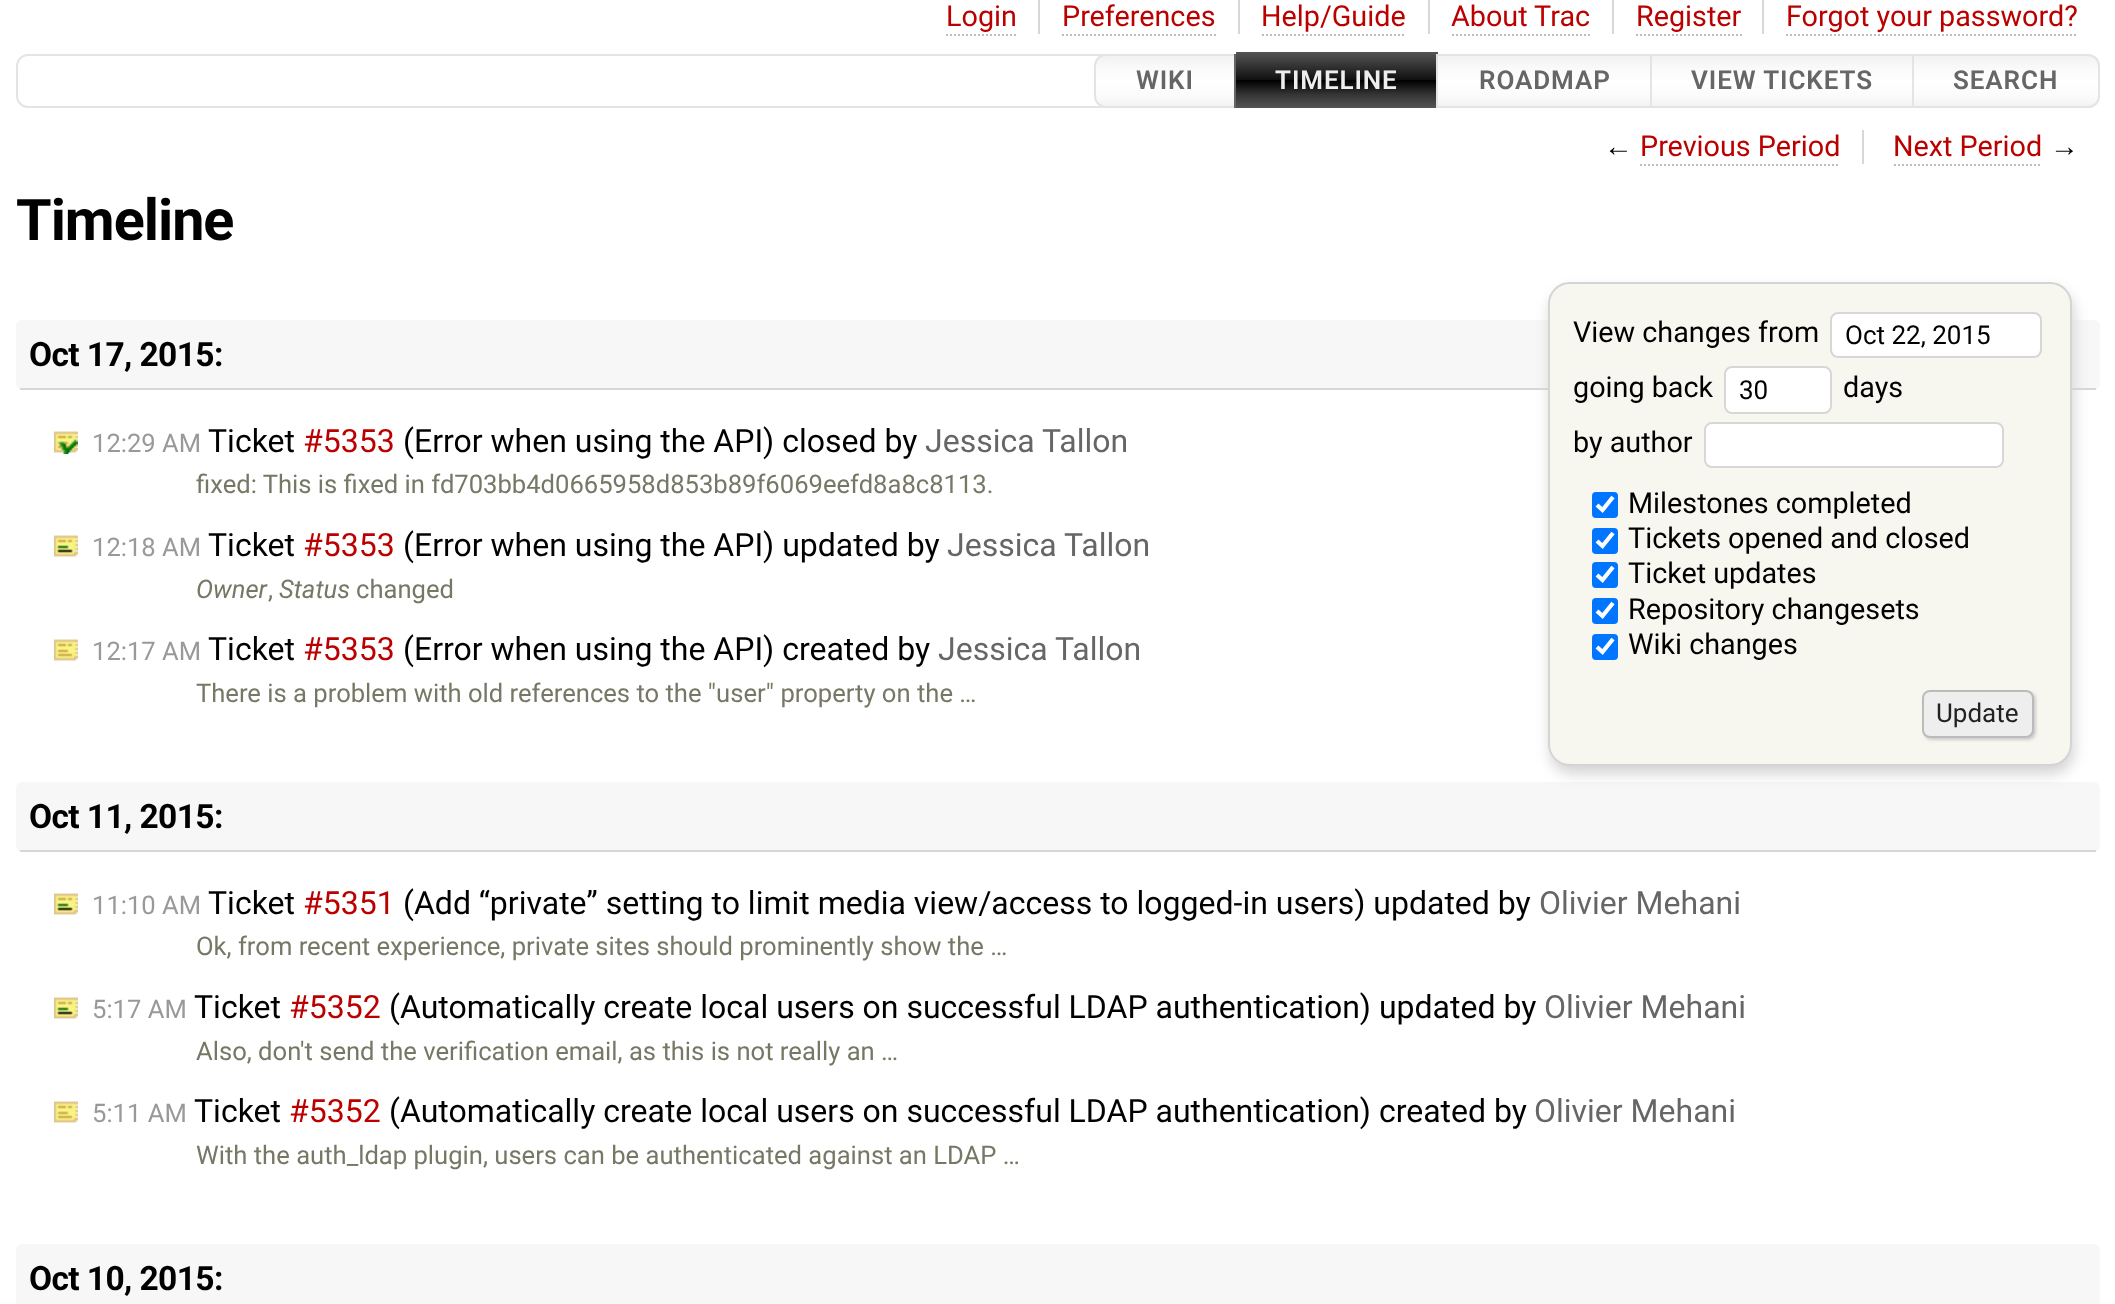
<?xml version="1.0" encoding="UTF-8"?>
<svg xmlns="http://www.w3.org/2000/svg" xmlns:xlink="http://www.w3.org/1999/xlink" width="2115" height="1304">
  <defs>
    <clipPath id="clip1"><path d="M 1106 54 h 130 v 54 h -130 c -6.5 0 -12 -5.5 -12 -12 v -30 c 0 -6.5 5.5 -12 12 -12 z" /></clipPath>
    <linearGradient id="g1" gradientUnits="userSpaceOnUse" x1="1165" y1="56" x2="1165" y2="106"><stop offset="0" stop-color="#f2f2f2" /><stop offset="0.25" stop-color="#fafafa" /><stop offset="0.49" stop-color="#fefefe" /><stop offset="0.51" stop-color="#ffffff" /><stop offset="0.85" stop-color="#fafafa" /><stop offset="1" stop-color="#f2f2f2" /></linearGradient>
    <linearGradient id="g2" gradientUnits="userSpaceOnUse" x1="1337" y1="52" x2="1337" y2="108"><stop offset="0" stop-color="#555555" /><stop offset="0.25" stop-color="#333333" /><stop offset="0.49" stop-color="#111111" /><stop offset="0.51" stop-color="#000000" /><stop offset="0.75" stop-color="#333333" /><stop offset="1" stop-color="#555555" /></linearGradient>
    <linearGradient id="g3" gradientUnits="userSpaceOnUse" x1="1544" y1="56" x2="1544" y2="106"><stop offset="0" stop-color="#f2f2f2" /><stop offset="0.25" stop-color="#fafafa" /><stop offset="0.49" stop-color="#fefefe" /><stop offset="0.51" stop-color="#ffffff" /><stop offset="0.85" stop-color="#fafafa" /><stop offset="1" stop-color="#f2f2f2" /></linearGradient>
    <linearGradient id="g4" gradientUnits="userSpaceOnUse" x1="1782" y1="56" x2="1782" y2="106"><stop offset="0" stop-color="#f2f2f2" /><stop offset="0.25" stop-color="#fafafa" /><stop offset="0.49" stop-color="#fefefe" /><stop offset="0.51" stop-color="#ffffff" /><stop offset="0.85" stop-color="#fafafa" /><stop offset="1" stop-color="#f2f2f2" /></linearGradient>
    <clipPath id="clip2"><path d="M 1912 54 h 176 c 6.5 0 12 5.5 12 12 v 30 c 0 6.5 -5.5 12 -12 12 h -176 z" /></clipPath>
    <linearGradient id="g5" gradientUnits="userSpaceOnUse" x1="2006" y1="56" x2="2006" y2="106"><stop offset="0" stop-color="#f2f2f2" /><stop offset="0.25" stop-color="#fafafa" /><stop offset="0.49" stop-color="#fefefe" /><stop offset="0.51" stop-color="#ffffff" /><stop offset="0.85" stop-color="#fafafa" /><stop offset="1" stop-color="#f2f2f2" /></linearGradient>
  </defs>
  <rect width="100%" height="100%" fill="#ffffff" />
  <rect x="1038" width="2" height="34" fill="#d7d7d7" />
  <path d="M 946 35 h 72" fill="none" stroke="#bbbbbb" stroke-width="2" stroke-dasharray="2 2" />
  <rect x="1238" width="2" height="34" fill="#d7d7d7" />
  <path d="M 1062 35 h 154" fill="none" stroke="#bbbbbb" stroke-width="2" stroke-dasharray="2 2" />
  <rect x="1428" width="2" height="34" fill="#d7d7d7" />
  <path d="M 1262 35 h 144" fill="none" stroke="#bbbbbb" stroke-width="2" stroke-dasharray="2 2" />
  <rect x="1612" width="2" height="34" fill="#d7d7d7" />
  <path d="M 1452 35 h 138" fill="none" stroke="#bbbbbb" stroke-width="2" stroke-dasharray="2 2" />
  <rect x="1762" width="2" height="34" fill="#d7d7d7" />
  <path d="M 1636 35 h 106" fill="none" stroke="#bbbbbb" stroke-width="2" stroke-dasharray="2 2" />
  <path d="M 1786 35 h 292" fill="none" stroke="#bbbbbb" stroke-width="2" stroke-dasharray="2 2" />
  <rect x="17" y="55" width="2082" height="52" rx="11" fill="none" stroke="#e4e4e4" stroke-width="2" />
  <g clip-path="url(#clip1)">
    <rect x="1094" y="56" width="140" height="50" fill="url(#g1)" />
  </g>
  <path d="M 1106 55 h 129 v 52 h -129 c -6 0 -11 -5 -11 -11 v -30 c 0 -6 5 -11 11 -11 z" fill="none" stroke="#e4e4e4" stroke-width="2" />
  <rect x="1235" y="55" width="204" height="52" fill="none" stroke="#666666" stroke-width="2" />
  <rect x="1236" y="52" width="202" height="56" fill="url(#g2)" />
  <rect x="1438" y="56" width="212" height="50" fill="url(#g3)" />
  <rect x="1437" y="55" width="214" height="52" fill="none" stroke="#e4e4e4" stroke-width="2" />
  <rect x="1652" y="56" width="260" height="50" fill="url(#g4)" />
  <rect x="1651" y="55" width="262" height="52" fill="none" stroke="#e4e4e4" stroke-width="2" />
  <g clip-path="url(#clip2)">
    <rect x="1914" y="56" width="186" height="50" fill="url(#g5)" />
  </g>
  <path d="M 1913 55 h 175 c 6 0 11 5 11 11 v 30 c 0 6 -5 11 -11 11 h -175 z" fill="none" stroke="#e4e4e4" stroke-width="2" />
  <rect x="1862" y="130" width="2" height="34" fill="#d7d7d7" />
  <path d="M 1640 165 h 200" fill="none" stroke="#bbbbbb" stroke-width="2" stroke-dasharray="2 2" />
  <path d="M 1894 165 h 148" fill="none" stroke="#bbbbbb" stroke-width="2" stroke-dasharray="2 2" />
  <rect x="16" y="320" width="2084" height="70" rx="6" fill="#f7f7f7" />
  <rect x="20" y="388" width="2076" height="2" fill="#d7d7d7" />
  <rect x="16" y="782" width="2084" height="70" rx="6" fill="#f7f7f7" />
  <rect x="1550" y="290" width="524" height="484" rx="22" fill="#d4d4d4" filter="blur(7px)" />
  <rect x="1549" y="283" width="522" height="482" rx="21" fill="#f7f7f0" stroke="#d4d4d4" stroke-width="2" />
  <rect x="1831" y="313" width="210" height="44" rx="7" fill="#ffffff" stroke="#d7d7d7" stroke-width="2" />
  <rect x="1725" y="367" width="106" height="46" rx="7" fill="#ffffff" stroke="#d7d7d7" stroke-width="2" />
  <rect x="1705" y="423" width="298" height="44" rx="7" fill="#ffffff" stroke="#d7d7d7" stroke-width="2" />
  <rect x="1592" y="492" width="26" height="26" rx="4" fill="#0075ff" />
  <path d="M 1597 505 l 5.5 5 l 10.5 -13" fill="none" stroke="#ffffff" stroke-width="4.2" />
  <rect x="1592" y="528" width="26" height="26" rx="4" fill="#0075ff" />
  <path d="M 1597 541 l 5.5 5 l 10.5 -13" fill="none" stroke="#ffffff" stroke-width="4.2" />
  <rect x="1592" y="562" width="26" height="26" rx="4" fill="#0075ff" />
  <path d="M 1597 575 l 5.5 5 l 10.5 -13" fill="none" stroke="#ffffff" stroke-width="4.2" />
  <rect x="1592" y="598" width="26" height="26" rx="4" fill="#0075ff" />
  <path d="M 1597 611 l 5.5 5 l 10.5 -13" fill="none" stroke="#ffffff" stroke-width="4.2" />
  <rect x="1592" y="634" width="26" height="26" rx="4" fill="#0075ff" />
  <path d="M 1597 647 l 5.5 5 l 10.5 -13" fill="none" stroke="#ffffff" stroke-width="4.2" />
  <rect x="1924" y="692" width="112" height="48" rx="8" fill="#cccccc" filter="blur(1.5px)" />
  <rect x="1923" y="691" width="110" height="46" rx="7" fill="#eeeeee" stroke="#bbbbbb" stroke-width="2" />
  <image x="54" y="431" width="24" height="23" xlink:href="image1.png" />
  <image x="54" y="431" width="24" height="23" xlink:href="image2.png" />
  <image x="54" y="535" width="24" height="22" xlink:href="image3.png" />
  <image x="54" y="535" width="24" height="22" xlink:href="image4.png" />
  <image x="54" y="639" width="24" height="22" xlink:href="image5.png" />
  <image x="54" y="639" width="24" height="22" xlink:href="image6.png" />
  <rect x="20" y="850" width="2076" height="2" fill="#d7d7d7" />
  <image x="54" y="893" width="24" height="22" xlink:href="image3.png" />
  <image x="54" y="893" width="24" height="22" xlink:href="image4.png" />
  <image x="54" y="997" width="24" height="22" xlink:href="image3.png" />
  <image x="54" y="997" width="24" height="22" xlink:href="image4.png" />
  <image x="54" y="1101" width="24" height="22" xlink:href="image5.png" />
  <image x="54" y="1101" width="24" height="22" xlink:href="image6.png" />
  <rect x="16" y="1244" width="2084" height="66" rx="6" fill="#f7f7f7" />
  <text x="946" y="26" style="font-family: Roboto; font-size: 28.75px; fill: #bb0000">Login</text>
  <text x="1062" y="26" style="font-family: Roboto; font-size: 28.75px; fill: #bb0000">Preferences</text>
  <text x="1261" y="26" style="font-family: Roboto; font-size: 28.75px; fill: #bb0000">Help/Guide</text>
  <text x="1451" y="26" style="font-family: Roboto; font-size: 28.75px; fill: #bb0000">About Trac</text>
  <text x="1636" y="26" style="font-family: Roboto; font-size: 28.75px; fill: #bb0000">Register</text>
  <text x="1786" y="26" style="font-family: Roboto; font-size: 28.75px; fill: #bb0000">Forgot your password?</text>
  <text x="1136" y="89" style="font-family: Roboto; font-size: 26px; font-weight: 600; letter-spacing: 0.9px; fill: #666666">WIKI</text>
  <text x="1275" y="89" style="font-family: Roboto; font-size: 26px; font-weight: 600; letter-spacing: 0.9px; fill: #eeeeee">TIMELINE</text>
  <text x="1479" y="89" style="font-family: Roboto; font-size: 26px; font-weight: 600; letter-spacing: 0.9px; fill: #666666">ROADMAP</text>
  <text x="1691" y="89" style="font-family: Roboto; font-size: 26px; font-weight: 600; letter-spacing: 0.9px; fill: #666666">VIEW TICKETS</text>
  <text x="1953" y="89" style="font-family: Roboto; font-size: 26px; font-weight: 600; letter-spacing: 0.9px; fill: #666666">SEARCH</text>
  <text x="1604" y="156" style="font-family: Liberation Sans; font-size: 28.75px; fill: #000000">←</text>
  <text x="1640" y="156" style="font-family: Roboto; font-size: 28.75px; fill: #bb0000">Previous Period</text>
  <text x="1893" y="156" style="font-family: Roboto; font-size: 28.75px; fill: #bb0000">Next Period</text>
  <text x="2050" y="156" style="font-family: Liberation Sans; font-size: 28.75px; fill: #000000">→</text>
  <text x="16" y="240" style="font-family: Roboto; font-size: 57.5px; font-weight: bold; letter-spacing: -1px; fill: #000000">Timeline</text>
  <text x="29" y="366" style="font-family: Roboto; font-size: 33.5px; font-weight: bold; letter-spacing: -0.6px; fill: #000000">Oct 17, 2015:</text>
  <text x="1573" y="342" style="font-family: Roboto; font-size: 28.75px; fill: #000000">View changes from</text>
  <text x="1845" y="344" style="font-family: Roboto; font-size: 26px; fill: #000000">Oct 22, 2015</text>
  <text x="1573" y="397" style="font-family: Roboto; font-size: 28.75px; fill: #000000">going back</text>
  <text x="1739" y="399" style="font-family: Roboto; font-size: 26px; fill: #000000">30</text>
  <text x="1843" y="397" style="font-family: Roboto; font-size: 28.75px; fill: #000000">days</text>
  <text x="1573" y="452" style="font-family: Roboto; font-size: 28.75px; fill: #000000">by author</text>
  <text x="1628" y="513" style="font-family: Roboto; font-size: 28.75px; fill: #000000">Milestones completed</text>
  <text x="1628" y="548" style="font-family: Roboto; font-size: 28.75px; fill: #000000">Tickets opened and closed</text>
  <text x="1628" y="583" style="font-family: Roboto; font-size: 28.75px; fill: #000000">Ticket updates</text>
  <text x="1628" y="619" style="font-family: Roboto; font-size: 28.75px; fill: #000000">Repository changesets</text>
  <text x="1628" y="654" style="font-family: Roboto; font-size: 28.75px; fill: #000000">Wiki changes</text>
  <text x="1936" y="722" style="font-family: Roboto; font-size: 26px; fill: #222222">Update</text>
  <text x="92" y="452" style="font-family: Roboto; font-size: 25.6px; fill: #999999">12:29 AM</text>
  <text x="208" y="452" style="font-family: Roboto; font-size: 32px; fill: #000000">Ticket</text>
  <text x="303" y="452" style="font-family: Roboto; font-size: 32px; fill: #bb0000">#5353</text>
  <text x="403" y="452" style="font-family: Roboto; font-size: 32px; fill: #000000">(Error when using the API) closed by</text>
  <text x="925" y="452" style="font-family: Roboto; font-size: 32px; fill: #666666">Jessica Tallon</text>
  <text x="196" y="493" style="font-family: Roboto; font-size: 25.6px; fill: #777766">fixed: This is fixed in fd703bb4d0665958d853b89f6069eefd8a8c8113.</text>
  <text x="92" y="556" style="font-family: Roboto; font-size: 25.6px; fill: #999999">12:18 AM</text>
  <text x="208" y="556" style="font-family: Roboto; font-size: 32px; fill: #000000">Ticket</text>
  <text x="303" y="556" style="font-family: Roboto; font-size: 32px; fill: #bb0000">#5353</text>
  <text x="403" y="556" style="font-family: Roboto; font-size: 32px; fill: #000000">(Error when using the API) updated by</text>
  <text x="947" y="556" style="font-family: Roboto; font-size: 32px; fill: #666666">Jessica Tallon</text>
  <text x="196" y="598" style="font-family: Roboto; font-size: 25.6px; font-style: italic; fill: #777766">Owner</text>
  <text x="268" y="598" style="font-family: Roboto; font-size: 25.6px; fill: #777766">,</text>
  <text x="279" y="598" style="font-family: Roboto; font-size: 25.6px; font-style: italic; fill: #777766">Status</text>
  <text x="356" y="598" style="font-family: Roboto; font-size: 25.6px; fill: #777766">changed</text>
  <text x="92" y="660" style="font-family: Roboto; font-size: 25.6px; fill: #999999">12:17 AM</text>
  <text x="208" y="660" style="font-family: Roboto; font-size: 32px; fill: #000000">Ticket</text>
  <text x="303" y="660" style="font-family: Roboto; font-size: 32px; fill: #bb0000">#5353</text>
  <text x="403" y="660" style="font-family: Roboto; font-size: 32px; fill: #000000">(Error when using the API) created by</text>
  <text x="938" y="660" style="font-family: Roboto; font-size: 32px; fill: #666666">Jessica Tallon</text>
  <text x="196" y="702" style="font-family: Roboto; font-size: 25.6px; fill: #777766">There is a problem with old references to the "user" property on the …</text>
  <text x="29" y="828" style="font-family: Roboto; font-size: 33.5px; font-weight: bold; letter-spacing: -0.6px; fill: #000000">Oct 11, 2015:</text>
  <text x="92" y="914" style="font-family: Roboto; font-size: 25.6px; fill: #999999">11:10 AM</text>
  <text x="208" y="914" style="font-family: Roboto; font-size: 32px; fill: #000000">Ticket</text>
  <text x="303" y="914" style="font-family: Roboto; font-size: 32px; fill: #bb0000">#5351</text>
  <text x="403" y="914" style="font-family: Roboto; font-size: 32px; fill: #000000">(Add “private” setting to limit media view/access to logged-in users) updated by</text>
  <text x="1539" y="914" style="font-family: Roboto; font-size: 32px; fill: #666666">Olivier Mehani</text>
  <text x="196" y="955" style="font-family: Roboto; font-size: 25.6px; fill: #777766">Ok, from recent experience, private sites should prominently show the …</text>
  <text x="92" y="1018" style="font-family: Roboto; font-size: 25.6px; fill: #999999">5:17 AM</text>
  <text x="194" y="1018" style="font-family: Roboto; font-size: 32px; fill: #000000">Ticket</text>
  <text x="289" y="1018" style="font-family: Roboto; font-size: 32px; fill: #bb0000">#5352</text>
  <text x="389" y="1018" style="font-family: Roboto; font-size: 32px; fill: #000000">(Automatically create local users on successful LDAP authentication) updated by</text>
  <text x="1544" y="1018" style="font-family: Roboto; font-size: 32px; fill: #666666">Olivier Mehani</text>
  <text x="196" y="1060" style="font-family: Roboto; font-size: 25.6px; fill: #777766">Also, don't send the verification email, as this is not really an …</text>
  <text x="92" y="1122" style="font-family: Roboto; font-size: 25.6px; fill: #999999">5:11 AM</text>
  <text x="194" y="1122" style="font-family: Roboto; font-size: 32px; fill: #000000">Ticket</text>
  <text x="289" y="1122" style="font-family: Roboto; font-size: 32px; fill: #bb0000">#5352</text>
  <text x="389" y="1122" style="font-family: Roboto; font-size: 32px; fill: #000000">(Automatically create local users on successful LDAP authentication) created by</text>
  <text x="1534" y="1122" style="font-family: Roboto; font-size: 32px; fill: #666666">Olivier Mehani</text>
  <text x="196" y="1164" style="font-family: Roboto; font-size: 25.6px; fill: #777766">With the auth_ldap plugin, users can be authenticated against an LDAP …</text>
  <text x="29" y="1290" style="font-family: Roboto; font-size: 33.5px; font-weight: bold; letter-spacing: -0.6px; fill: #000000">Oct 10, 2015:</text>
</svg>
